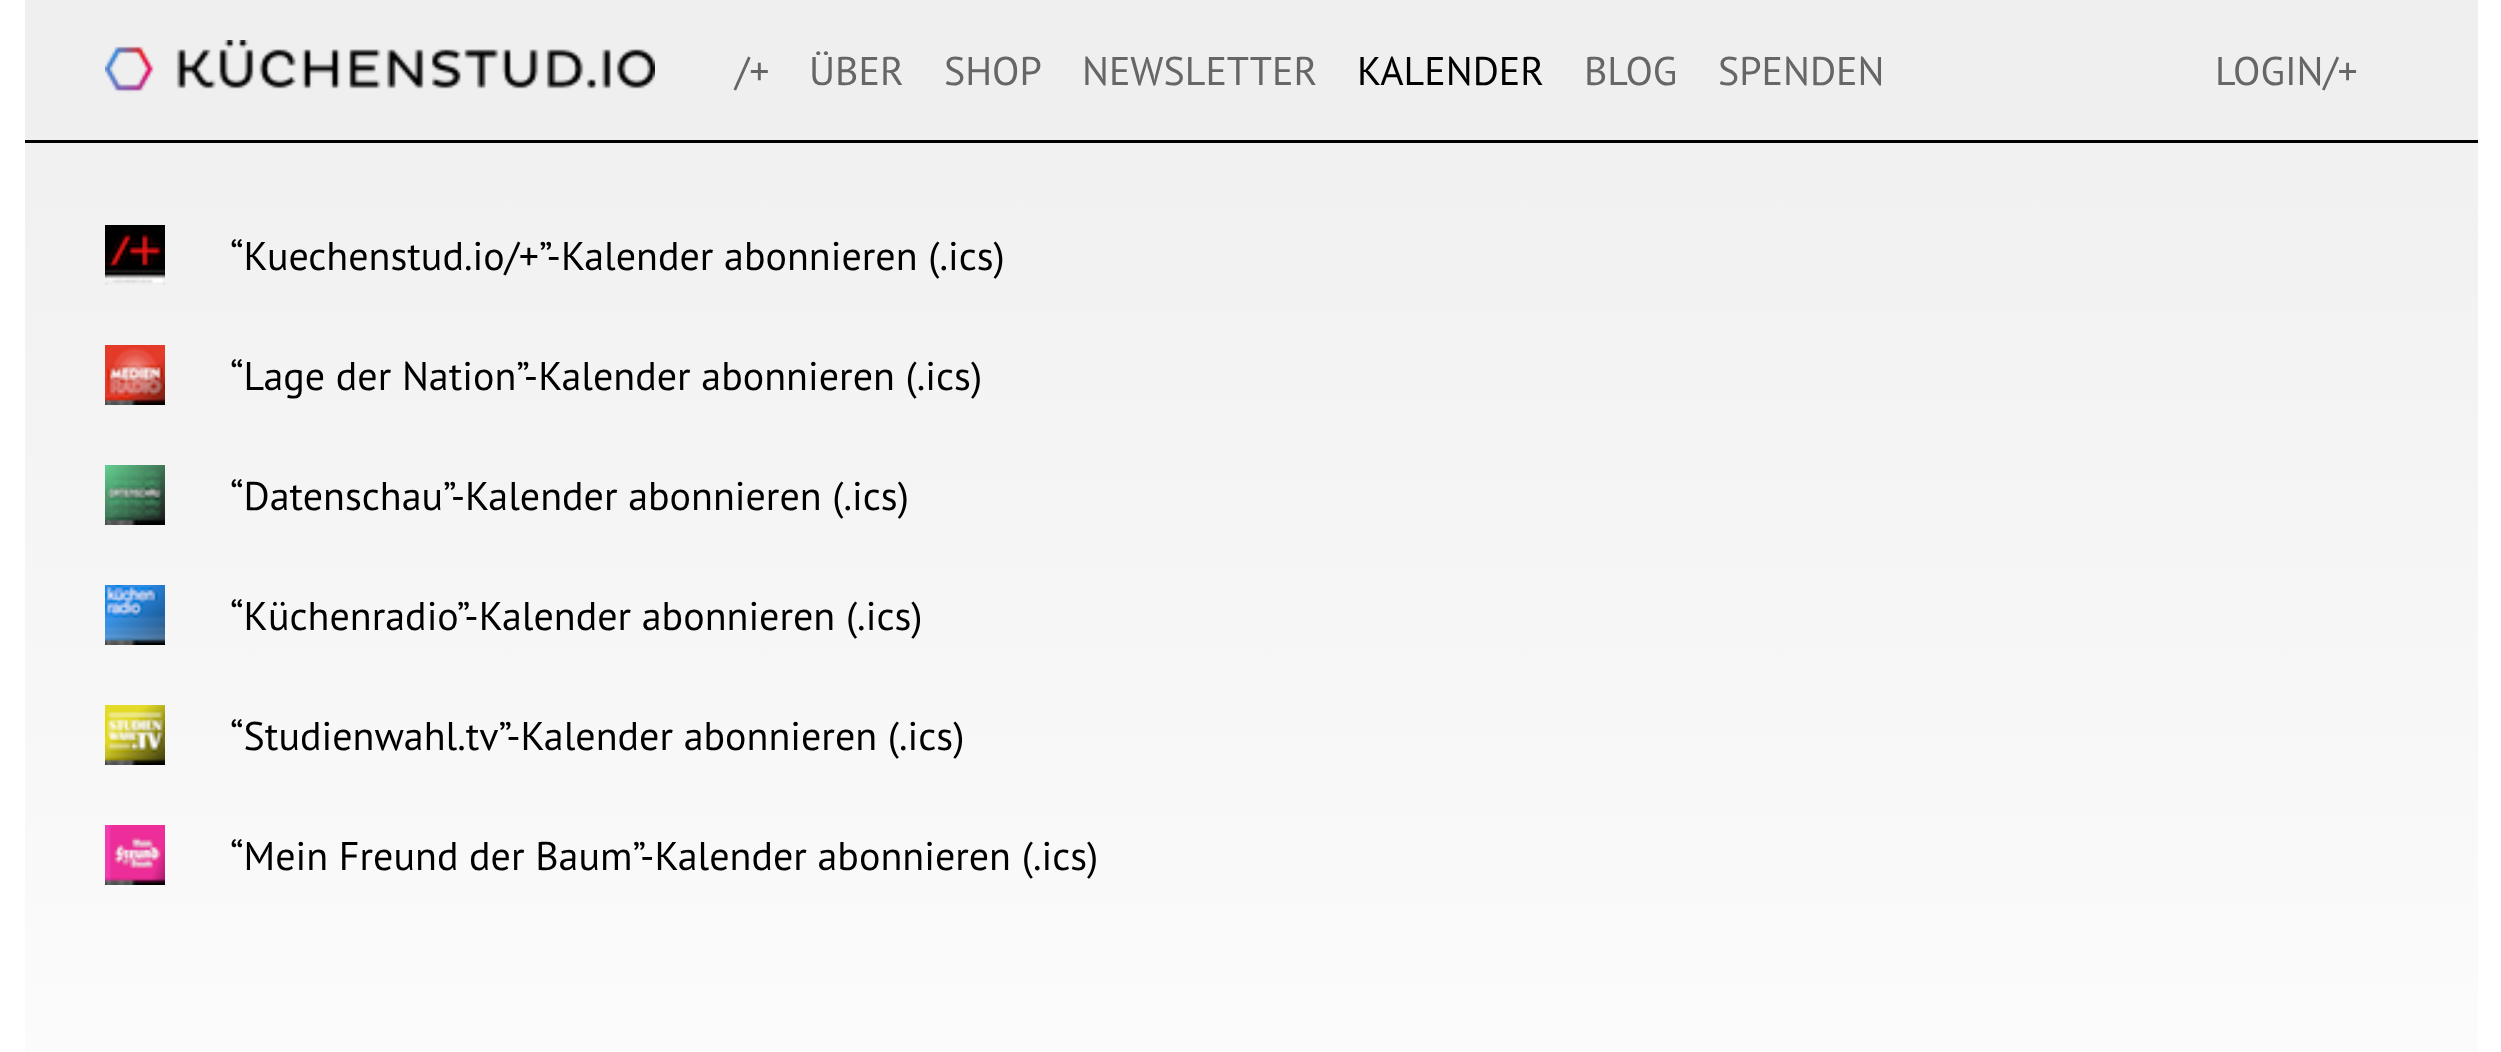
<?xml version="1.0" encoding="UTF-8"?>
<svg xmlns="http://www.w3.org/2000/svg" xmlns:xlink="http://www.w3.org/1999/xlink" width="2501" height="1052">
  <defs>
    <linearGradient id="g1" gradientUnits="userSpaceOnUse" x1="1251" y1="0" x2="1251" y2="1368"><stop offset="0" stop-color="#f0f0f0" /><stop offset="0.2" stop-color="#f2f2f2" /><stop offset="1" stop-color="#ffffff" /></linearGradient>
  </defs>
  <rect width="100%" height="100%" fill="#ffffff" />
  <rect x="25" y="143" width="2453" height="909" fill="url(#g1)" />
  <rect x="25" width="2453" height="140" fill="#efefef" />
  <rect x="25" y="140" width="2453" height="3" fill="#000000" />
  <image x="105" y="40" width="550" height="53" xlink:href="image1.png" />
  <image x="105" y="225" width="60" height="60" xlink:href="image2.png" />
  <image x="105" y="345" width="60" height="60" xlink:href="image3.png" />
  <image x="105" y="465" width="60" height="60" xlink:href="image4.png" />
  <image x="105" y="585" width="60" height="60" xlink:href="image5.png" />
  <image x="105" y="705" width="60" height="60" xlink:href="image6.png" />
  <image x="105" y="825" width="60" height="60" xlink:href="image7.png" />
  <text x="735" y="85" style="font-family: PT Sans; font-size: 40px; fill: #666666">/+</text>
  <text x="809" y="85" style="font-family: PT Sans; font-size: 40px; fill: #666666">ÜBER</text>
  <text x="944" y="85" style="font-family: PT Sans; font-size: 40px; fill: #666666">SHOP</text>
  <text x="1082" y="85" style="font-family: PT Sans; font-size: 40px; fill: #666666">NEWSLETTER</text>
  <text x="1357" y="85" style="font-family: PT Sans; font-size: 40px; fill: #000000">KALENDER</text>
  <text x="1584" y="85" style="font-family: PT Sans; font-size: 40px; fill: #666666">BLOG</text>
  <text x="1718" y="85" style="font-family: PT Sans; font-size: 40px; fill: #666666">SPENDEN</text>
  <text x="2215" y="85" style="font-family: PT Sans; font-size: 40px; fill: #666666">LOGIN/+</text>
  <text x="230" y="270" style="font-family: PT Sans; font-size: 40px; fill: #000000">“Kuechenstud.io/+”-Kalender abonnieren (.ics)</text>
  <text x="230" y="390" style="font-family: PT Sans; font-size: 40px; fill: #000000">“Lage der Nation”-Kalender abonnieren (.ics)</text>
  <text x="230" y="510" style="font-family: PT Sans; font-size: 40px; fill: #000000">“Datenschau”-Kalender abonnieren (.ics)</text>
  <text x="230" y="630" style="font-family: PT Sans; font-size: 40px; fill: #000000">“Küchenradio”-Kalender abonnieren (.ics)</text>
  <text x="230" y="750" style="font-family: PT Sans; font-size: 40px; fill: #000000">“Studienwahl.tv”-Kalender abonnieren (.ics)</text>
  <text x="230" y="870" style="font-family: PT Sans; font-size: 40px; fill: #000000">“Mein Freund der Baum”-Kalender abonnieren (.ics)</text>
</svg>
